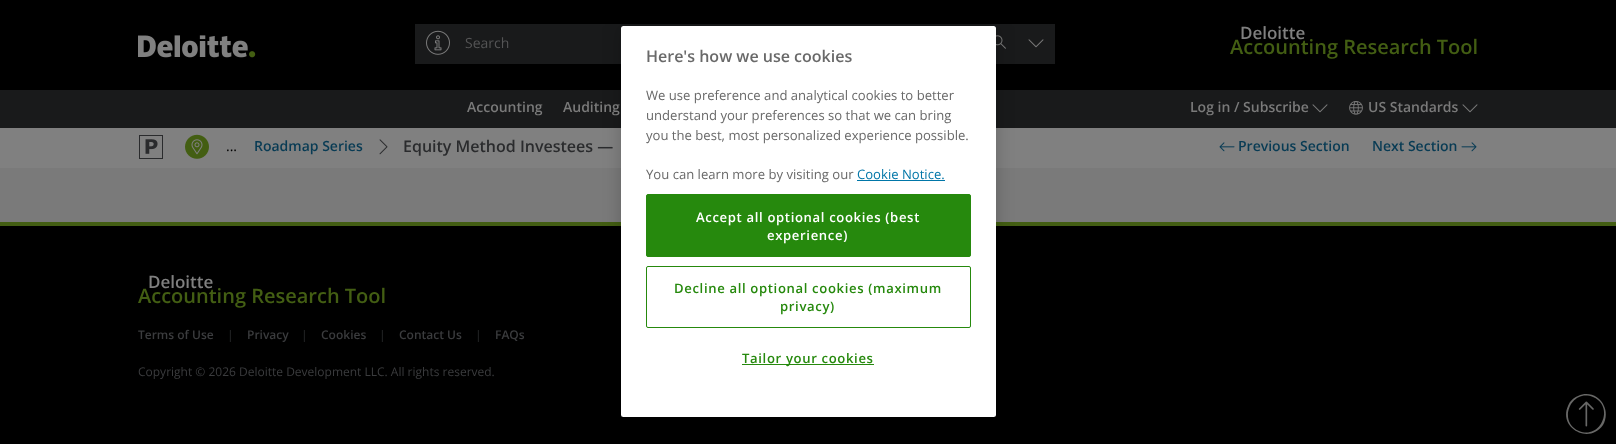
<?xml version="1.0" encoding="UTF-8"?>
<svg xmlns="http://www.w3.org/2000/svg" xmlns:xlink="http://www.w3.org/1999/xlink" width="1616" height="444">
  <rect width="100%" height="100%" fill="#000000" />
  <image x="138" y="35" width="110" height="23" xlink:href="image1.png" />
  <image x="249" y="51" width="7" height="7" xlink:href="image2.png" />
  <rect x="415" y="24" width="640" height="40" fill="#191a1b" />
  <image x="426" y="30" width="24" height="25" xlink:href="image3.png" />
  <image x="434" y="35" width="8" height="16" xlink:href="image4.png" />
  <image x="996" y="35" width="10" height="14" xlink:href="image5.png" />
  <image x="1028" y="39" width="16" height="9" xlink:href="image6.png" />
  <rect y="90" width="1616" height="38" fill="#191a1b" />
  <image x="1312" y="104" width="16" height="9" xlink:href="image6.png" />
  <image x="1349" y="101" width="14" height="14" xlink:href="image7.png" />
  <image x="1462" y="104" width="16" height="9" xlink:href="image6.png" />
  <rect y="128" width="1616" height="40" fill="#808080" />
  <path d="M 139 135 h 24 v 24 h -24 z m 1 1 v 22 h 22 v -22 z" fill="#2a2b2d" />
  <image x="145" y="139" width="13" height="15" xlink:href="image8.png" />
  <image x="185" y="134" width="24" height="25" xlink:href="image9.png" />
  <image x="191" y="139" width="12" height="16" xlink:href="image10.png" />
  <image x="379" y="139" width="9" height="16" xlink:href="image11.png" />
  <image x="1219" y="142" width="16" height="10" xlink:href="image12.png" />
  <image x="1461" y="142" width="16" height="10" xlink:href="image13.png" />
  <rect y="168" width="1616" height="54" fill="#7a7a7a" />
  <rect y="222" width="1616" height="4" fill="#435e13" />
  <rect x="621" y="26" width="375" height="391" rx="2.5" fill="#000000" fill-opacity="0.2" filter="blur(9px)" />
  <rect x="621" y="26" width="375" height="391" rx="2.5" fill="#ffffff" />
  <rect x="857" y="180" width="88" height="1" fill="#0076a8" />
  <rect x="646.5" y="194.5" width="324" height="62" rx="1.5" fill="#26890d" stroke="#26890d" />
  <rect x="646.5" y="266.5" width="324" height="61" rx="1.5" fill="none" stroke="#26890d" />
  <rect x="742" y="364" width="132" height="1" fill="#26890d" />
  <path d="M 1578 396 c 10 -5 22 0 26 10 c 3 6 2 14 -1 19 c -14 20 -45 3 -35 -19 c 2 -5 5 -8 10 -10 z m 15 1 c -22 -9 -36 25 -14 34 c 22 9 36 -25 14 -34 z" fill="#686867" />
  <image x="1578" y="401" width="16" height="26" xlink:href="image14.png" />
  <text x="465" y="48" style="font-family: Open Sans; font-size: 14px; fill: #545455">Search</text>
  <text x="1240" y="39" style="font-family: Open Sans; font-size: 17px; font-weight: 600; fill: #808080">Deloitte</text>
  <text x="1230" y="54" style="font-family: Open Sans; font-size: 20px; font-weight: 600; fill: #435e13">Accounting Research Tool</text>
  <text x="467" y="112" style="font-family: Open Sans; font-size: 14px; font-weight: 600; fill: #7a7a7a">Accounting</text>
  <text x="563" y="112" style="font-family: Open Sans; font-size: 14px; font-weight: 600; fill: #7a7a7a">Auditing</text>
  <text x="1190" y="112" style="font-family: Open Sans; font-size: 14px; font-weight: 600; fill: #7a7a7a">Log in / Subscribe</text>
  <text x="1368" y="112" style="font-family: Open Sans; font-size: 14px; font-weight: 600; fill: #7a7a7a">US Standards</text>
  <text x="226" y="151" style="font-family: Open Sans; font-size: 14px; fill: #000000">...</text>
  <text x="254" y="151" style="font-family: Open Sans; font-size: 14px; font-weight: 600; fill: #083b54">Roadmap Series</text>
  <text x="403" y="152" style="font-family: Open Sans; font-size: 16px; font-weight: 600; fill: #2a2b2d">Equity Method Investees —</text>
  <text x="1238" y="151" style="font-family: Open Sans; font-size: 14px; font-weight: 600; fill: #083b54">Previous Section</text>
  <text x="1372" y="151" style="font-family: Open Sans; font-size: 14px; font-weight: 600; fill: #083b54">Next Section</text>
  <text x="646" y="62" style="font-family: Open Sans; font-size: 16px; font-weight: 600; fill: #696969">Here's how we use cookies</text>
  <text x="646" y="100" style="font-family: Open Sans; font-size: 13.1px; fill: #696969">We use preference and analytical cookies to better</text>
  <text x="646" y="120" style="font-family: Open Sans; font-size: 13.1px; fill: #696969">understand your preferences so that we can bring</text>
  <text x="646" y="140" style="font-family: Open Sans; font-size: 13.1px; fill: #696969">you the best, most personalized experience possible.</text>
  <text x="646" y="179" style="font-family: Open Sans; font-size: 13.1px; fill: #696969">You can learn more by visiting our</text>
  <text x="857" y="179" style="font-family: Open Sans; font-size: 13.1px; fill: #0076a8">Cookie Notice.</text>
  <text x="696" y="222" style="font-family: Open Sans; font-size: 13.1px; font-weight: 600; letter-spacing: 0.65px; fill: #ffffff">Accept all optional cookies (best</text>
  <text x="767" y="240" style="font-family: Open Sans; font-size: 13.1px; font-weight: 600; letter-spacing: 0.65px; fill: #ffffff">experience)</text>
  <text x="674" y="293" style="font-family: Open Sans; font-size: 13.1px; font-weight: 600; letter-spacing: 0.65px; fill: #26890d">Decline all optional cookies (maximum</text>
  <text x="780" y="311" style="font-family: Open Sans; font-size: 13.1px; font-weight: 600; letter-spacing: 0.65px; fill: #26890d">privacy)</text>
  <text x="742" y="363" style="font-family: Open Sans; font-size: 13.1px; font-weight: 600; letter-spacing: 0.65px; fill: #26890d">Tailor your cookies</text>
  <text x="148" y="288" style="font-family: Open Sans; font-size: 17px; font-weight: 600; fill: #808080">Deloitte</text>
  <text x="138" y="303" style="font-family: Open Sans; font-size: 20px; font-weight: 600; fill: #435e13">Accounting Research Tool</text>
  <text x="138" y="339" style="font-family: Open Sans; font-size: 12px; font-weight: 600; fill: #3b3c3e">Terms of Use</text>
  <text x="227" y="339" style="font-family: Open Sans; font-size: 12px; fill: #2a2b2d">|</text>
  <text x="247" y="339" style="font-family: Open Sans; font-size: 12px; font-weight: 600; fill: #3b3c3e">Privacy</text>
  <text x="301" y="339" style="font-family: Open Sans; font-size: 12px; fill: #2a2b2d">|</text>
  <text x="321" y="339" style="font-family: Open Sans; font-size: 12px; font-weight: 600; fill: #3b3c3e">Cookies</text>
  <text x="379" y="339" style="font-family: Open Sans; font-size: 12px; fill: #2a2b2d">|</text>
  <text x="399" y="339" style="font-family: Open Sans; font-size: 12px; font-weight: 600; fill: #3b3c3e">Contact Us</text>
  <text x="475" y="339" style="font-family: Open Sans; font-size: 12px; fill: #2a2b2d">|</text>
  <text x="495" y="339" style="font-family: Open Sans; font-size: 12px; font-weight: 600; fill: #3b3c3e">FAQs</text>
  <text x="138" y="376" style="font-family: Open Sans; font-size: 12px; fill: #3b3c3e">Copyright © 2026 Deloitte Development LLC. All rights reserved.</text>
</svg>
